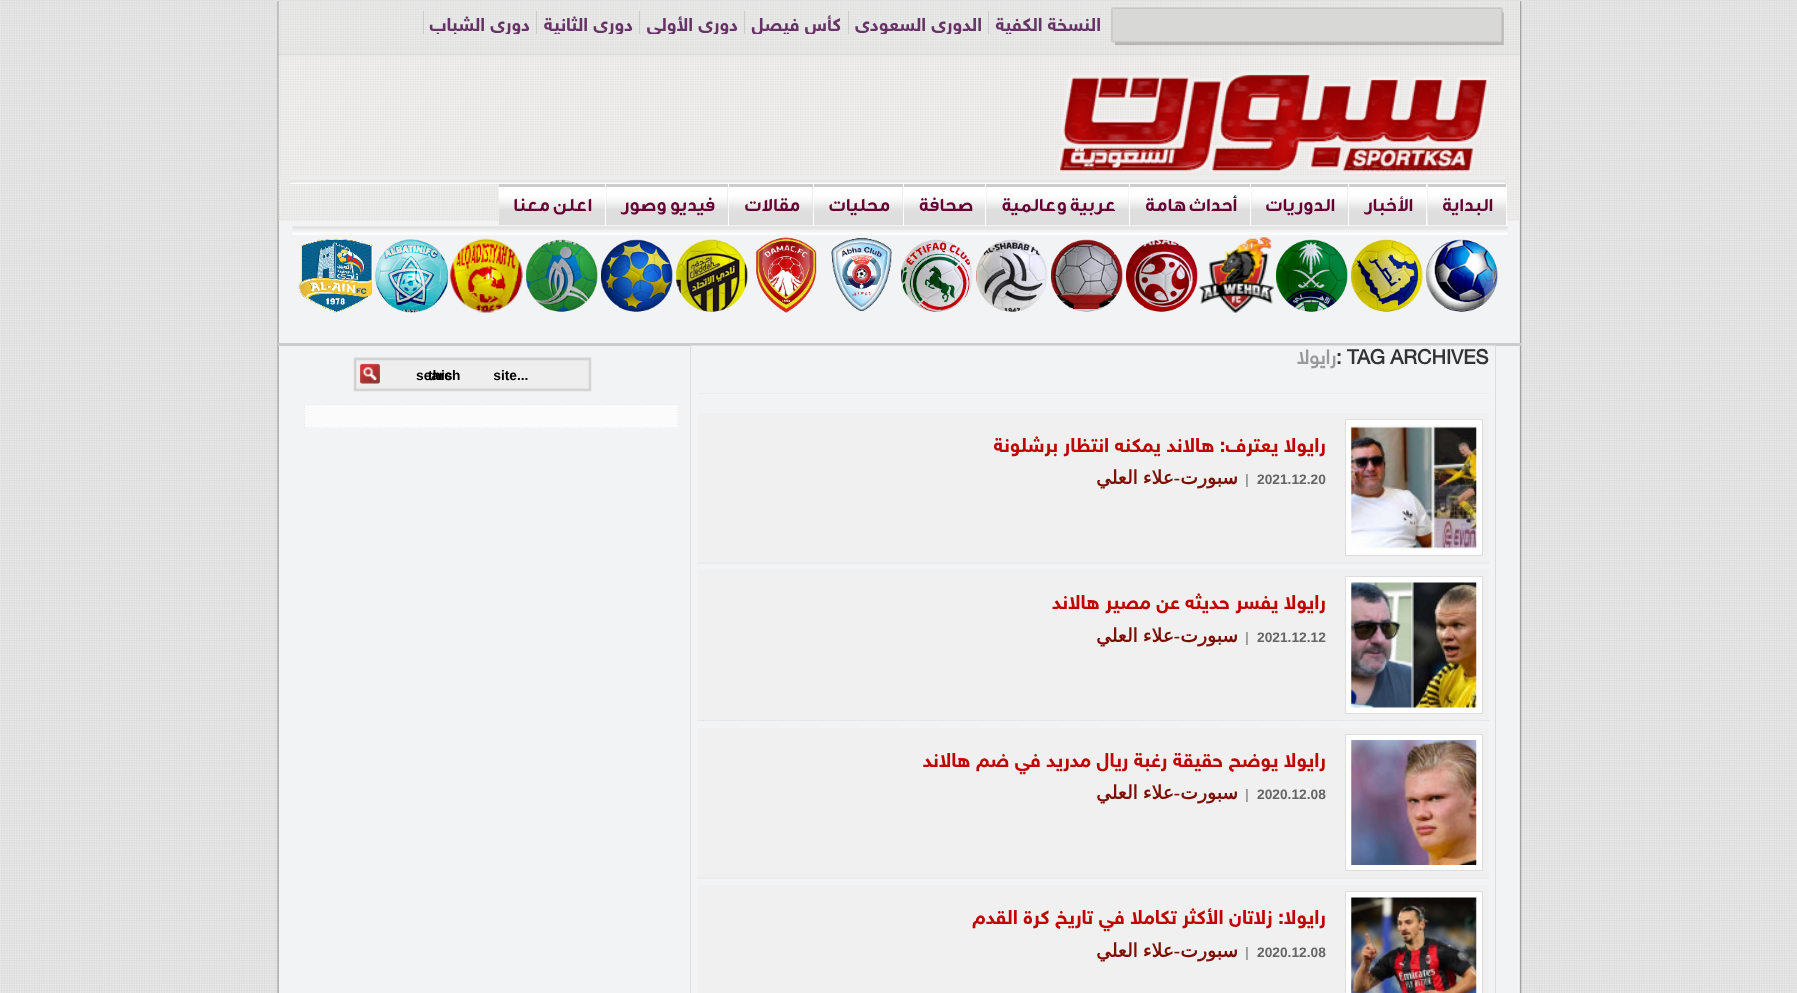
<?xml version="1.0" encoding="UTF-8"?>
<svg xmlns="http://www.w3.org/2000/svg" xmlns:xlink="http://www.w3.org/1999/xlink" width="1797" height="993">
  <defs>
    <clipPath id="clip1"><rect x="304" y="345" width="375" height="103" /></clipPath>
    <clipPath id="clip2"><rect x="351" y="9" width="794" height="25" /></clipPath>
  </defs>
  <rect width="100%" height="100%" fill="#ffffff" />
  <image x="0" y="0" width="1797" height="993" xlink:href="image1.png" />
  <image x="277" y="1" width="1245" height="992" xlink:href="image2.png" />
  <image x="278" y="1" width="1242" height="220" xlink:href="image3.png" />
  <rect x="988" y="11" width="1" height="23" fill="#cccccc" />
  <rect x="848" y="11" width="1" height="23" fill="#cccccc" />
  <rect x="744" y="11" width="1" height="23" fill="#cccccc" />
  <rect x="639" y="11" width="1" height="23" fill="#cccccc" />
  <rect x="536" y="11" width="1" height="23" fill="#cccccc" />
  <rect x="423" y="11" width="1" height="23" fill="#cccccc" />
  <image x="1057" y="71" width="432" height="103" xlink:href="image4.png" />
  <image x="290" y="177" width="1215" height="7" xlink:href="image5.png" />
  <rect x="1506" y="184" width="1" height="42" fill="#ffffff" />
  <rect x="1428" y="212" width="78" height="13" fill="#dedede" />
  <image x="1427" y="186" width="80" height="27" xlink:href="image6.png" />
  <rect x="1428" y="184" width="78" height="3" fill="#cccccc" />
  <rect x="1426" y="184" width="1" height="42" fill="#ffffff" />
  <rect x="1349" y="212" width="77" height="13" fill="#dedede" />
  <rect x="1348" y="184" width="1" height="42" fill="#ffffff" />
  <image x="1348" y="186" width="79" height="27" xlink:href="image7.png" />
  <rect x="1349" y="184" width="77" height="3" fill="#cccccc" />
  <rect x="1251" y="187" width="97" height="38" fill="#dedede" />
  <image x="1251" y="187" width="97" height="22" xlink:href="image8.png" />
  <rect x="1251" y="184" width="97" height="3" fill="#cccccc" />
  <rect x="1250" y="184" width="1" height="42" fill="#ffffff" />
  <rect x="1130" y="209" width="120" height="16" fill="#dedede" />
  <image x="1130" y="187" width="120" height="22" xlink:href="image9.png" />
  <rect x="1130" y="184" width="120" height="3" fill="#cccccc" />
  <rect x="1129" y="184" width="1" height="42" fill="#ffffff" />
  <rect x="986" y="187" width="143" height="38" fill="#dedede" />
  <image x="986" y="187" width="143" height="22" xlink:href="image10.png" />
  <rect x="986" y="184" width="143" height="3" fill="#cccccc" />
  <rect x="985" y="184" width="1" height="42" fill="#ffffff" />
  <rect x="904" y="212" width="81" height="13" fill="#dedede" />
  <rect x="903" y="184" width="1" height="42" fill="#ffffff" />
  <image x="903" y="186" width="82" height="27" xlink:href="image11.png" />
  <rect x="904" y="184" width="81" height="3" fill="#cccccc" />
  <rect x="814" y="187" width="89" height="38" fill="#dedede" />
  <rect x="813" y="184" width="1" height="42" fill="#ffffff" />
  <image x="813" y="186" width="90" height="27" xlink:href="image12.png" />
  <rect x="814" y="184" width="89" height="3" fill="#cccccc" />
  <rect x="729" y="187" width="84" height="38" fill="#dedede" />
  <rect x="728" y="184" width="1" height="42" fill="#ffffff" />
  <image x="728" y="186" width="85" height="27" xlink:href="image13.png" />
  <rect x="729" y="184" width="84" height="3" fill="#cccccc" />
  <rect x="606" y="187" width="122" height="38" fill="#dedede" />
  <image x="606" y="187" width="122" height="22" xlink:href="image14.png" />
  <rect x="606" y="184" width="122" height="3" fill="#cccccc" />
  <rect x="605" y="184" width="1" height="42" fill="#ffffff" />
  <rect x="499" y="209" width="106" height="16" fill="#dedede" />
  <image x="498" y="186" width="107" height="23" xlink:href="image15.png" />
  <rect x="499" y="184" width="106" height="3" fill="#cccccc" />
  <image x="292" y="226" width="1216" height="9" xlink:href="image16.png" />
  <image x="1426" y="239" width="72" height="73" xlink:href="image17.png" />
  <image x="1351" y="239" width="72" height="73" xlink:href="image18.png" />
  <image x="1276" y="239" width="72" height="73" xlink:href="image19.png" />
  <image x="1198" y="237" width="76" height="76" xlink:href="image20.png" />
  <image x="1126" y="239" width="72" height="73" xlink:href="image21.png" />
  <image x="1051" y="239" width="72" height="73" xlink:href="image22.png" />
  <image x="976" y="239" width="72" height="73" xlink:href="image23.png" />
  <image x="901" y="239" width="72" height="73" xlink:href="image24.png" />
  <image x="831" y="238" width="61" height="74" xlink:href="image25.png" />
  <image x="756" y="237" width="61" height="76" xlink:href="image26.png" />
  <image x="676" y="239" width="72" height="73" xlink:href="image27.png" />
  <image x="601" y="239" width="72" height="73" xlink:href="image28.png" />
  <image x="526" y="239" width="72" height="73" xlink:href="image29.png" />
  <image x="449" y="238" width="74" height="75" xlink:href="image30.png" />
  <image x="375" y="239" width="74" height="74" xlink:href="image31.png" />
  <image x="298" y="238" width="75" height="75" xlink:href="image32.png" />
  <rect x="278" y="343" width="1243" height="3" fill="#cccccc" />
  <rect x="690.5" y="345.5" width="805" height="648" fill="none" stroke="#dddddd" />
  <rect x="698" y="393" width="791" height="1" fill="#ecede8" />
  <rect x="698" y="413" width="791" height="151" fill="#f0f0f0" />
  <path d="M 697.5 563 h 791.5" fill="none" stroke="#dddddd" stroke-width="1.2" stroke-dasharray="1.25 1.25" />
  <rect x="1345.5" y="419.5" width="137" height="136" fill="#ffffff" stroke="#dddddd" />
  <image x="1351" y="425" width="126" height="125" xlink:href="image33.png" />
  <rect x="698" y="570" width="791" height="151" fill="#f0f0f0" />
  <path d="M 697.5 720.5 h 791.5" fill="none" stroke="#dddddd" stroke-width="1.2" stroke-dasharray="1.25 1.25" />
  <rect x="1345.5" y="576.5" width="137" height="137" fill="#ffffff" stroke="#dddddd" />
  <image x="1351" y="582" width="126" height="126" xlink:href="image34.png" />
  <rect x="698" y="728" width="791" height="151" fill="#f0f0f0" />
  <path d="M 697.5 878 h 791.5" fill="none" stroke="#dddddd" stroke-width="1.2" stroke-dasharray="1.25 1.25" />
  <rect x="1345.5" y="734.5" width="137" height="136" fill="#ffffff" stroke="#dddddd" />
  <image x="1351" y="740" width="126" height="125" xlink:href="image35.png" />
  <rect x="698" y="885" width="791" height="108" fill="#f0f0f0" />
  <rect x="1345.5" y="891.5" width="137" height="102" fill="#ffffff" stroke="#dddddd" />
  <image x="1351" y="897" width="126" height="96" xlink:href="image36.png" />
  <image x="353" y="357" width="239" height="35" xlink:href="image37.png" />
  <image x="360" y="363" width="20" height="21" xlink:href="image38.png" />
  <rect x="304" y="404" width="375" height="25" fill="#fbfbfb" />
  <path d="M 304 404.5 h 375" fill="none" stroke="#e6e6e6" stroke-width="1.2" stroke-dasharray="1.25 1.25" />
  <path d="M 678 404 v 25" fill="none" stroke="#e6e6e6" stroke-width="1.2" stroke-dasharray="1.25 1.25" />
  <path d="M 304 428 h 375" fill="none" stroke="#e6e6e6" stroke-width="1.2" stroke-dasharray="1.25 1.25" />
  <g clip-path="url(#clip1)">
    <path d="M 304.5 404 v 25" fill="none" stroke="#e6e6e6" stroke-width="1.2" stroke-dasharray="1.25 1.25" />
  </g>
  <g clip-path="url(#clip2)">
    <text x="1101" y="31" style="font-family: 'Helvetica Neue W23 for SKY'; font-size: 18.75px; font-weight: bold; direction: rtl; fill: #663366">النسخة الكفية</text>
    <text x="982" y="31" style="font-family: 'Helvetica Neue W23 for SKY'; font-size: 18.75px; font-weight: bold; direction: rtl; fill: #663366">الدوري السعودي</text>
    <text x="841" y="31" style="font-family: 'Helvetica Neue W23 for SKY'; font-size: 18.75px; font-weight: bold; direction: rtl; fill: #663366">كأس فيصل</text>
    <text x="738" y="31" style="font-family: 'Helvetica Neue W23 for SKY'; font-size: 18.75px; font-weight: bold; direction: rtl; fill: #663366">دوري الأولى</text>
    <text x="633" y="31" style="font-family: 'Helvetica Neue W23 for SKY'; font-size: 18.75px; font-weight: bold; direction: rtl; fill: #663366">دوري الثانية</text>
    <text x="530" y="31" style="font-family: 'Helvetica Neue W23 for SKY'; font-size: 18.75px; font-weight: bold; direction: rtl; fill: #663366">دوري الشباب</text>
  </g>
  <text x="1493" y="211" style="font-family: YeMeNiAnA; font-size: 18.75px; font-weight: bold; direction: rtl; fill: #660033">البداية</text>
  <text x="1413" y="211" style="font-family: YeMeNiAnA; font-size: 18.75px; font-weight: bold; direction: rtl; fill: #660033">الأخبار</text>
  <text x="1335" y="211" style="font-family: YeMeNiAnA; font-size: 18.75px; font-weight: bold; direction: rtl; fill: #660033">الدوريات</text>
  <text x="1237" y="211" style="font-family: YeMeNiAnA; font-size: 18.75px; font-weight: bold; direction: rtl; fill: #660033">أحداث هامة</text>
  <text x="1116" y="211" style="font-family: YeMeNiAnA; font-size: 18.75px; font-weight: bold; direction: rtl; fill: #660033">عربية وعالمية</text>
  <text x="973" y="211" style="font-family: YeMeNiAnA; font-size: 18.75px; font-weight: bold; direction: rtl; fill: #660033">صحافة</text>
  <text x="890" y="211" style="font-family: YeMeNiAnA; font-size: 18.75px; font-weight: bold; direction: rtl; fill: #660033">محليات</text>
  <text x="800" y="211" style="font-family: YeMeNiAnA; font-size: 18.75px; font-weight: bold; direction: rtl; fill: #660033">مقالات</text>
  <text x="715" y="211" style="font-family: YeMeNiAnA; font-size: 18.75px; font-weight: bold; direction: rtl; fill: #660033">فيديو وصور</text>
  <text x="592" y="211" style="font-family: YeMeNiAnA; font-size: 18.75px; font-weight: bold; direction: rtl; fill: #660033">اعلن معنا</text>
  <text x="1336" y="364" style="font-family: 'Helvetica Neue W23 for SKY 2'; font-size: 20px; font-weight: bold; fill: #333333">: TAG ARCHIVES</text>
  <text x="1336" y="364" style="font-family: 'Helvetica Neue W23 for SKY 2'; font-size: 20px; font-weight: bold; direction: rtl; fill: #999999">رايولا</text>
  <text x="1326" y="452" style="font-family: 'Helvetica Neue W23 for SKY'; font-size: 20px; font-weight: bold; direction: rtl; fill: #c00402">رايولا يعترف: هالاند يمكنه انتظار برشلونة</text>
  <text x="1257" y="484" style="font-family: Liberation Sans; font-size: 13.75px; font-weight: bold; fill: #666666">2021.12.20</text>
  <text x="1245" y="484" style="font-family: Liberation Sans; font-size: 13.75px; font-weight: bold; fill: #999999">|</text>
  <text x="1238" y="484" style="font-family: DejaVu Sans; font-size: 18.75px; font-weight: bold; direction: rtl; fill: #7c0e03">سبورت</text>
  <text x="1180" y="484" style="font-family: Liberation Serif; font-size: 18.75px; font-weight: bold; direction: rtl; fill: #7c0e03">-</text>
  <text x="1174" y="484" word-spacing="-1" style="font-family: DejaVu Sans; font-size: 18.75px; font-weight: bold; direction: rtl; fill: #7c0e03">علاء العلي</text>
  <text x="1326" y="609" style="font-family: 'Helvetica Neue W23 for SKY'; font-size: 20px; font-weight: bold; direction: rtl; fill: #c00402">رايولا يفسر حديثه عن مصير هالاند</text>
  <text x="1257" y="642" style="font-family: Liberation Sans; font-size: 13.75px; font-weight: bold; fill: #666666">2021.12.12</text>
  <text x="1245" y="642" style="font-family: Liberation Sans; font-size: 13.75px; font-weight: bold; fill: #999999">|</text>
  <text x="1238" y="642" style="font-family: DejaVu Sans; font-size: 18.75px; font-weight: bold; direction: rtl; fill: #7c0e03">سبورت</text>
  <text x="1180" y="642" style="font-family: Liberation Serif; font-size: 18.75px; font-weight: bold; direction: rtl; fill: #7c0e03">-</text>
  <text x="1174" y="642" word-spacing="-1" style="font-family: DejaVu Sans; font-size: 18.75px; font-weight: bold; direction: rtl; fill: #7c0e03">علاء العلي</text>
  <text x="1326" y="767" style="font-family: 'Helvetica Neue W23 for SKY'; font-size: 20px; font-weight: bold; direction: rtl; fill: #c00402">رايولا يوضح حقيقة رغبة ريال مدريد في ضم هالاند</text>
  <text x="1257" y="799" style="font-family: Liberation Sans; font-size: 13.75px; font-weight: bold; fill: #666666">2020.12.08</text>
  <text x="1245" y="799" style="font-family: Liberation Sans; font-size: 13.75px; font-weight: bold; fill: #999999">|</text>
  <text x="1238" y="799" style="font-family: DejaVu Sans; font-size: 18.75px; font-weight: bold; direction: rtl; fill: #7c0e03">سبورت</text>
  <text x="1180" y="799" style="font-family: Liberation Serif; font-size: 18.75px; font-weight: bold; direction: rtl; fill: #7c0e03">-</text>
  <text x="1174" y="799" word-spacing="-1" style="font-family: DejaVu Sans; font-size: 18.75px; font-weight: bold; direction: rtl; fill: #7c0e03">علاء العلي</text>
  <text x="1326" y="924" style="font-family: 'Helvetica Neue W23 for SKY'; font-size: 20px; font-weight: bold; direction: rtl; fill: #c00402">رايولا: زلاتان الأكثر تكاملا في تاريخ كرة القدم</text>
  <text x="1257" y="957" style="font-family: Liberation Sans; font-size: 13.75px; font-weight: bold; fill: #666666">2020.12.08</text>
  <text x="1245" y="957" style="font-family: Liberation Sans; font-size: 13.75px; font-weight: bold; fill: #999999">|</text>
  <text x="1238" y="957" style="font-family: DejaVu Sans; font-size: 18.75px; font-weight: bold; direction: rtl; fill: #7c0e03">سبورت</text>
  <text x="1180" y="957" style="font-family: Liberation Serif; font-size: 18.75px; font-weight: bold; direction: rtl; fill: #7c0e03">-</text>
  <text x="1174" y="957" word-spacing="-1" style="font-family: DejaVu Sans; font-size: 18.75px; font-weight: bold; direction: rtl; fill: #7c0e03">علاء العلي</text>
  <text x="416" y="380" style="font-family: Liberation Sans; font-size: 13.75px; font-weight: bold; fill: #000000">search</text>
  <text x="428" y="380" word-spacing="37" style="font-family: Liberation Sans; font-size: 13.75px; font-weight: bold; fill: #000000">this site...</text>
</svg>
